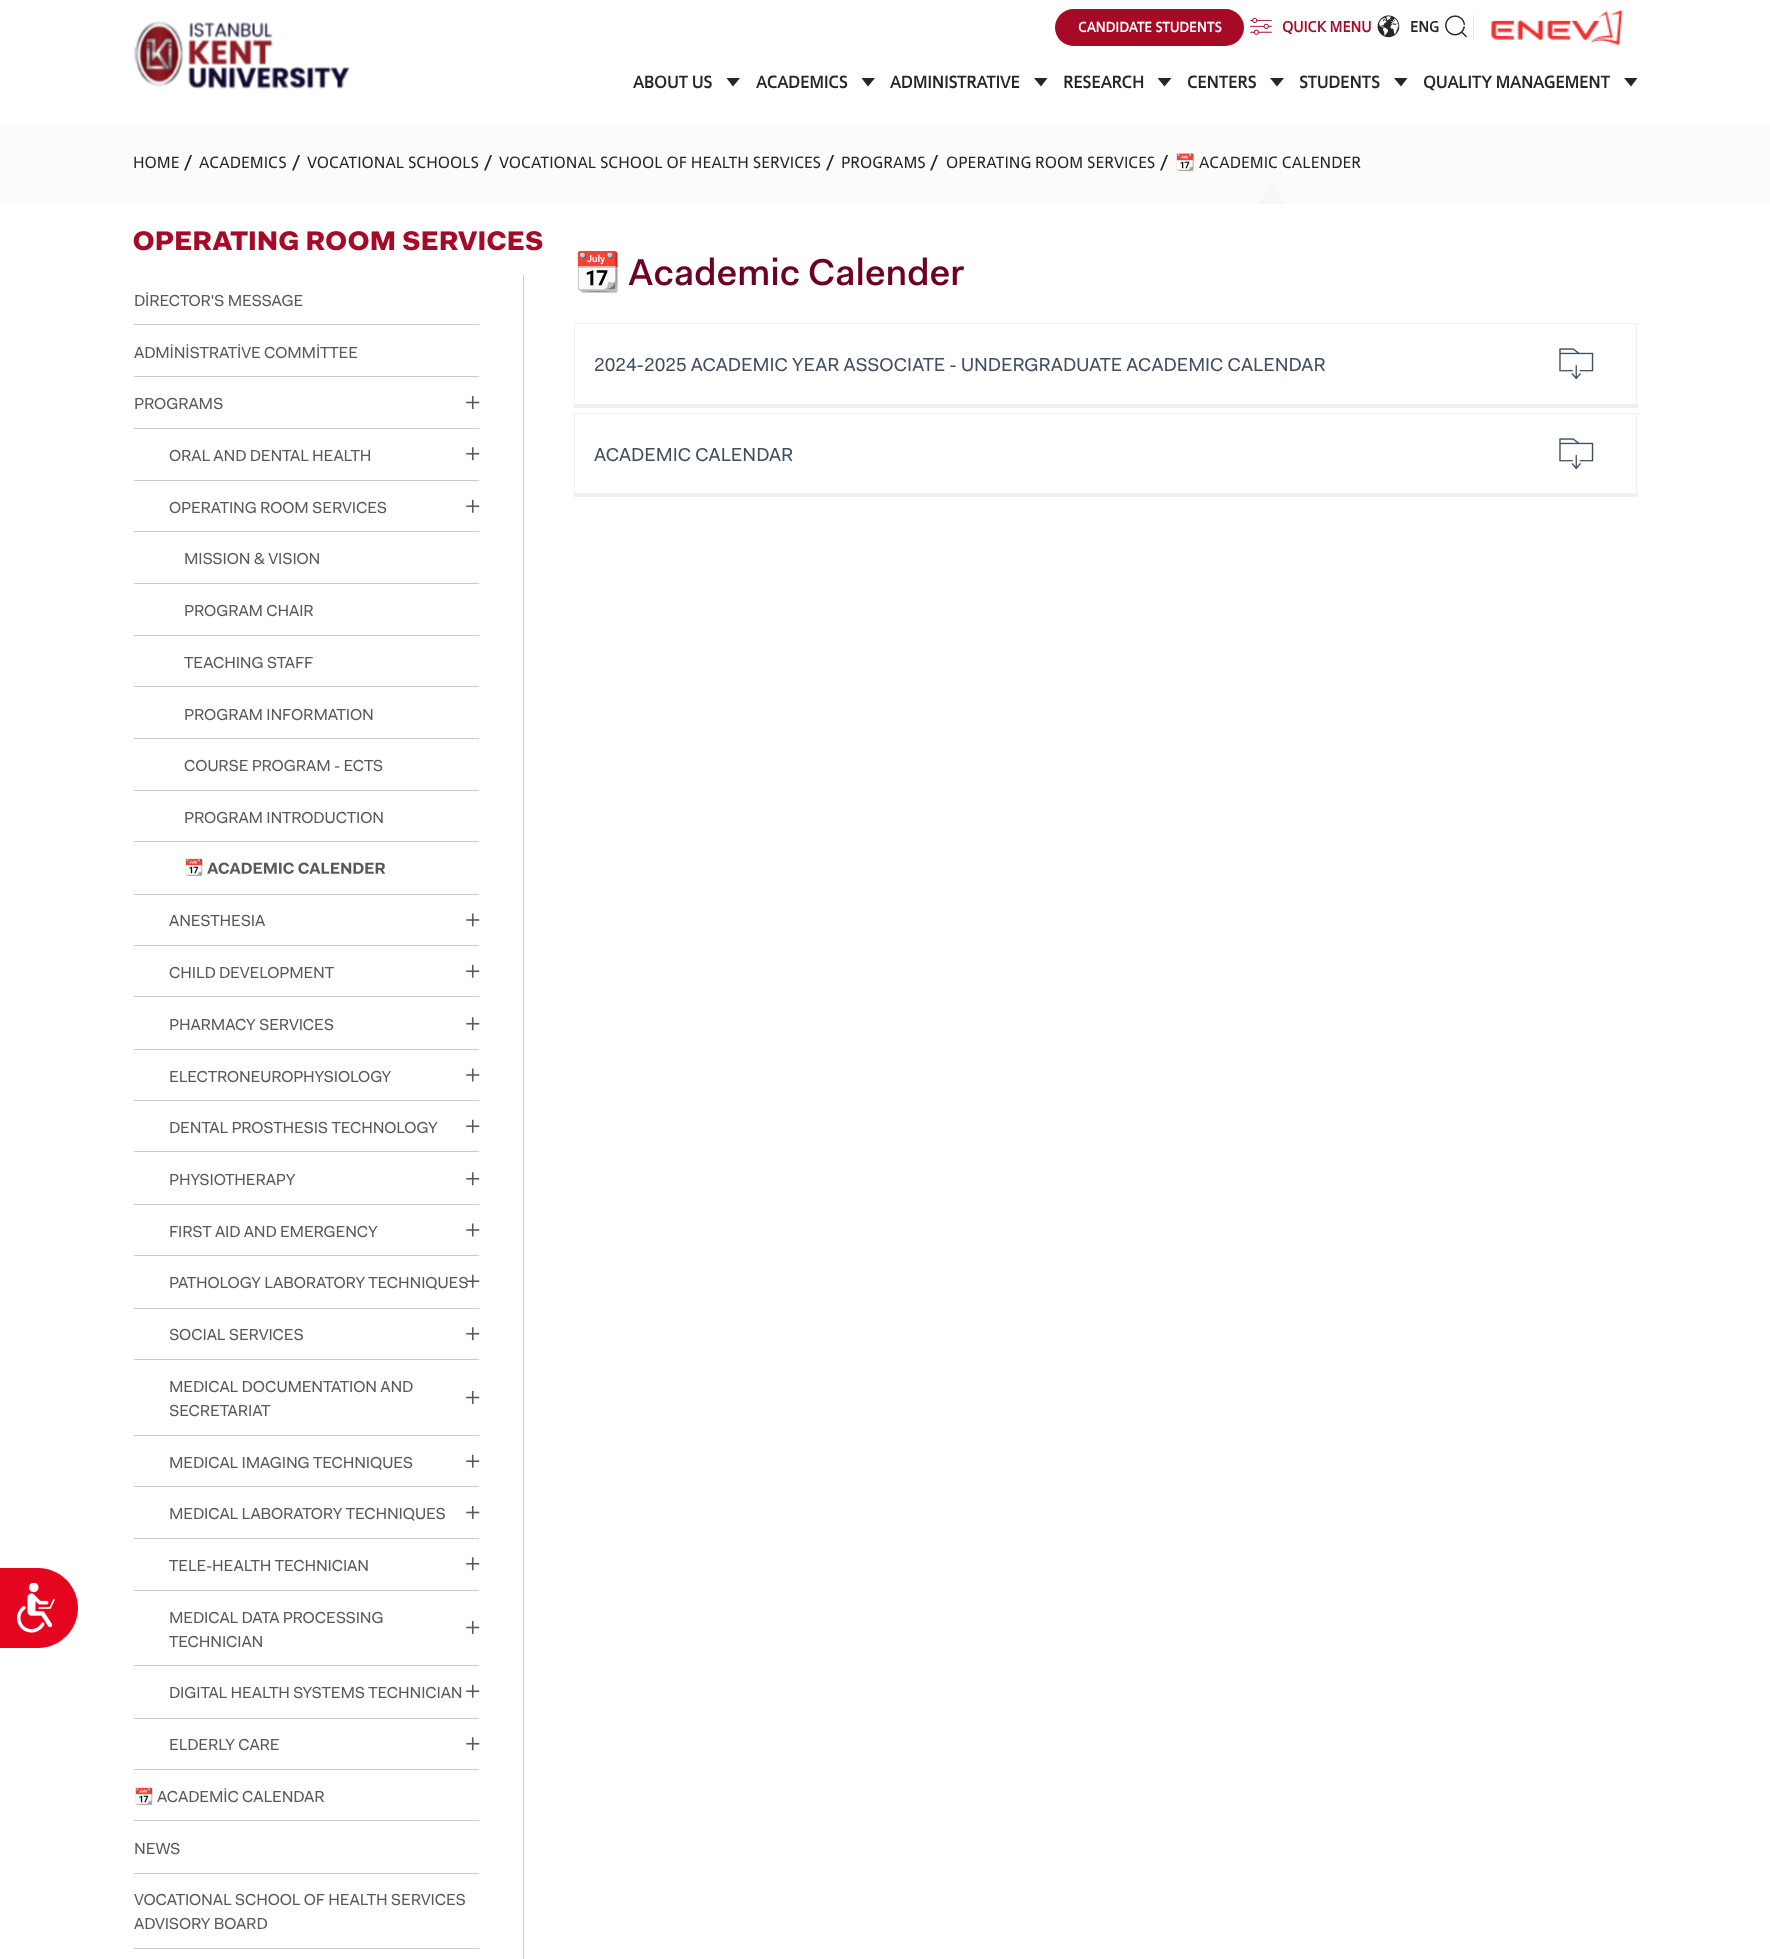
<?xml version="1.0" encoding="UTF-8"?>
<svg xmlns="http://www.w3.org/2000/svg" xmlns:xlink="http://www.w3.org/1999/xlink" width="1770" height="1959">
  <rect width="100%" height="100%" fill="#ffffff" />
  <image x="134" y="21" width="217" height="68" xlink:href="image1.png" />
  <rect x="1055" y="9" width="189" height="37" rx="18.5" fill="#a60a27" />
  <image x="1250" y="17" width="22" height="18" xlink:href="image2.png" />
  <image x="1377" y="15" width="23" height="23" xlink:href="image3.png" />
  <image x="1445" y="15" width="22" height="23" xlink:href="image4.png" />
  <rect x="1473" y="15" width="1" height="25" fill="#ebebeb" />
  <image x="1491" y="9" width="132" height="37" xlink:href="image5.png" />
  <path d="M 733 86.5 l -6.5 -8.5 h 13.5 z" fill="#262626" />
  <path d="M 868 86.5 l -6.5 -8.5 h 13.5 z" fill="#262626" />
  <path d="M 1041 86.5 l -7 -8.5 h 13.5 z" fill="#262626" />
  <path d="M 1164.5 86.5 l -7 -8.5 h 14 z" fill="#262626" />
  <path d="M 1277 86.5 l -7 -8.5 h 14 z" fill="#262626" />
  <path d="M 1401 86.5 l -7 -8.5 h 13.5 z" fill="#262626" />
  <path d="M 1631 86.5 l -7 -8.5 h 13.5 z" fill="#262626" />
  <rect y="123" width="1770" height="81" fill="#fdfafa" />
  <path d="M 1284 204 h -25 l 12 -24 z" fill="#f7f7f7" />
  <path d="M 0 1568 h 38 c 22 0 40 18 40 40 c 0 22 -18 40 -40 40 h -38 z" fill="#e6051f" />
  <image x="17" y="1583" width="38" height="50" xlink:href="image6.png" />
  <image x="133" y="231" width="410" height="20" xlink:href="image7.png" />
  <rect x="523" y="275" width="1" height="1684" fill="#cccccc" />
  <rect x="134" y="324" width="345" height="1" fill="#cccccc" />
  <rect x="134" y="376" width="345" height="1" fill="#cccccc" />
  <rect x="134" y="428" width="345" height="1" fill="#cccccc" />
  <image x="466" y="396" width="14" height="13" xlink:href="image8.png" />
  <rect x="134" y="480" width="345" height="1" fill="#cccccc" />
  <image x="466" y="447" width="14" height="14" xlink:href="image9.png" />
  <rect x="134" y="531" width="345" height="1" fill="#cccccc" />
  <image x="466" y="499" width="14" height="14" xlink:href="image10.png" />
  <rect x="134" y="583" width="345" height="1" fill="#cccccc" />
  <rect x="134" y="635" width="345" height="1" fill="#cccccc" />
  <rect x="134" y="686" width="345" height="1" fill="#cccccc" />
  <rect x="134" y="738" width="345" height="1" fill="#cccccc" />
  <rect x="134" y="790" width="345" height="1" fill="#cccccc" />
  <rect x="134" y="841" width="345" height="1" fill="#cccccc" />
  <rect x="134" y="894" width="345" height="1" fill="#cccccc" />
  <image x="207" y="862" width="179" height="12" xlink:href="image11.png" />
  <rect x="134" y="945" width="345" height="1" fill="#cccccc" />
  <image x="466" y="913" width="14" height="14" xlink:href="image12.png" />
  <rect x="134" y="996" width="345" height="1" fill="#cccccc" />
  <image x="466" y="964" width="14" height="14" xlink:href="image10.png" />
  <rect x="134" y="1049" width="345" height="1" fill="#cccccc" />
  <image x="466" y="1017" width="14" height="14" xlink:href="image9.png" />
  <rect x="134" y="1100" width="345" height="1" fill="#cccccc" />
  <image x="466" y="1068" width="14" height="14" xlink:href="image12.png" />
  <rect x="134" y="1151" width="345" height="1" fill="#cccccc" />
  <image x="466" y="1119" width="14" height="14" xlink:href="image10.png" />
  <rect x="134" y="1204" width="345" height="1" fill="#cccccc" />
  <image x="466" y="1172" width="14" height="14" xlink:href="image9.png" />
  <rect x="134" y="1255" width="345" height="1" fill="#cccccc" />
  <image x="466" y="1223" width="14" height="14" xlink:href="image12.png" />
  <rect x="134" y="1308" width="345" height="1" fill="#cccccc" />
  <rect x="134" y="1359" width="345" height="1" fill="#cccccc" />
  <image x="466" y="1327" width="14" height="14" xlink:href="image9.png" />
  <rect x="134" y="1435" width="345" height="1" fill="#cccccc" />
  <image x="466" y="1391" width="14" height="13" xlink:href="image8.png" />
  <rect x="134" y="1486" width="345" height="1" fill="#cccccc" />
  <image x="466" y="1454" width="14" height="14" xlink:href="image10.png" />
  <rect x="134" y="1538" width="345" height="1" fill="#cccccc" />
  <image x="466" y="1506" width="14" height="13" xlink:href="image8.png" />
  <rect x="134" y="1590" width="345" height="1" fill="#cccccc" />
  <image x="466" y="1557" width="14" height="14" xlink:href="image9.png" />
  <rect x="134" y="1665" width="345" height="1" fill="#cccccc" />
  <image x="466" y="1621" width="14" height="13" xlink:href="image8.png" />
  <rect x="134" y="1718" width="345" height="1" fill="#cccccc" />
  <image x="466" y="1684" width="14" height="14" xlink:href="image10.png" />
  <rect x="134" y="1769" width="345" height="1" fill="#cccccc" />
  <image x="466" y="1737" width="14" height="14" xlink:href="image9.png" />
  <rect x="134" y="1820" width="345" height="1" fill="#cccccc" />
  <rect x="134" y="1873" width="345" height="1" fill="#cccccc" />
  <rect x="134" y="1948" width="345" height="1" fill="#cccccc" />
  <image x="628" y="257" width="337" height="29" xlink:href="image14.png" />
  <rect x="574" y="323" width="1064" height="1" fill="#efefef" />
  <rect x="1636" y="323" width="1" height="85" fill="#efefef" />
  <rect x="574" y="404" width="1064" height="4" fill="#efefef" />
  <rect x="574" y="323" width="1" height="85" fill="#efefef" />
  <image x="1559" y="348" width="35" height="32" xlink:href="image15.png" />
  <rect x="574" y="413" width="1064" height="1" fill="#efefef" />
  <rect x="1636" y="413" width="1" height="83" fill="#efefef" />
  <rect x="574" y="493" width="1064" height="4" fill="#efefef" />
  <rect x="574" y="413" width="1" height="83" fill="#efefef" />
  <image x="1559" y="438" width="35" height="32" xlink:href="image15.png" />
  <text x="1078" y="32" style="font-family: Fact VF; font-size: 14px; font-weight: bold; fill: #ffffff">CANDIDATE STUDENTS</text>
  <text x="1282" y="32" style="font-family: Fact VF; font-size: 15px; font-weight: bold; fill: #a60a27">QUICK MENU</text>
  <text x="1410" y="32" style="font-family: Fact VF; font-size: 15px; font-weight: bold; fill: #262626">ENG</text>
  <text x="633" y="88" style="font-family: Fact VF; font-size: 17px; font-weight: bold; fill: #262626">ABOUT US</text>
  <text x="756" y="88" style="font-family: Fact VF; font-size: 17px; font-weight: bold; fill: #262626">ACADEMICS</text>
  <text x="890" y="88" style="font-family: Fact VF; font-size: 17px; font-weight: bold; fill: #262626">ADMINISTRATIVE</text>
  <text x="1063" y="88" style="font-family: Fact VF; font-size: 17px; font-weight: bold; fill: #262626">RESEARCH</text>
  <text x="1187" y="88" style="font-family: Fact VF; font-size: 17px; font-weight: bold; fill: #262626">CENTERS</text>
  <text x="1299" y="88" style="font-family: Fact VF; font-size: 17px; font-weight: bold; fill: #262626">STUDENTS</text>
  <text x="1423" y="88" style="font-family: Fact VF; font-size: 17px; font-weight: bold; fill: #262626">QUALITY MANAGEMENT</text>
  <text x="133" y="168" style="font-family: Fact VF; font-size: 16.25px; fill: #262626">HOME</text>
  <text x="184" y="168" style="font-family: Fact VF; font-size: 16.25px; font-weight: bold; fill: #262626">/</text>
  <text x="199" y="168" style="font-family: Fact VF; font-size: 16.25px; fill: #262626">ACADEMICS</text>
  <text x="292" y="168" style="font-family: Fact VF; font-size: 16.25px; font-weight: bold; fill: #262626">/</text>
  <text x="307" y="168" style="font-family: Fact VF; font-size: 16.25px; fill: #262626">VOCATIONAL SCHOOLS</text>
  <text x="484" y="168" style="font-family: Fact VF; font-size: 16.25px; font-weight: bold; fill: #262626">/</text>
  <text x="499" y="168" style="font-family: Fact VF; font-size: 16.25px; fill: #262626">VOCATIONAL SCHOOL OF HEALTH SERVICES</text>
  <text x="826" y="168" style="font-family: Fact VF; font-size: 16.25px; font-weight: bold; fill: #262626">/</text>
  <text x="841" y="168" style="font-family: Fact VF; font-size: 16.25px; fill: #262626">PROGRAMS</text>
  <text x="930" y="168" style="font-family: Fact VF; font-size: 16.25px; font-weight: bold; fill: #262626">/</text>
  <text x="946" y="168" style="font-family: Fact VF; font-size: 16.25px; fill: #262626">OPERATING ROOM SERVICES</text>
  <text x="1160" y="168" style="font-family: Fact VF; font-size: 16.25px; font-weight: bold; fill: #262626">/</text>
  <text x="1175" y="168" style="font-family: Noto Color Emoji; font-size: 16.25px; fill: #262626">📆</text>
  <text x="1199" y="168" style="font-family: Fact VF; font-size: 16.25px; fill: #262626">ACADEMIC CALENDER</text>
  <text x="134" y="306" style="font-family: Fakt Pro; font-size: 16px; letter-spacing: -0.15px; fill: #595959">DİRECTOR'S MESSAGE</text>
  <text x="134" y="358" style="font-family: Fakt Pro; font-size: 16px; letter-spacing: -0.15px; fill: #595959">ADMİNİSTRATİVE COMMİTTEE</text>
  <text x="134" y="409" style="font-family: Fakt Pro; font-size: 16px; letter-spacing: -0.15px; fill: #595959">PROGRAMS</text>
  <text x="169" y="461" style="font-family: Fakt Pro; font-size: 16px; letter-spacing: -0.15px; fill: #595959">ORAL AND DENTAL HEALTH</text>
  <text x="169" y="513" style="font-family: Fakt Pro; font-size: 16px; letter-spacing: -0.15px; fill: #595959">OPERATING ROOM SERVICES</text>
  <text x="184" y="564" style="font-family: Fakt Pro; font-size: 16px; letter-spacing: -0.15px; fill: #595959">MISSION &amp; VISION</text>
  <text x="184" y="616" style="font-family: Fakt Pro; font-size: 16px; letter-spacing: -0.15px; fill: #595959">PROGRAM CHAIR</text>
  <text x="184" y="668" style="font-family: Fakt Pro; font-size: 16px; letter-spacing: -0.15px; fill: #595959">TEACHING STAFF</text>
  <text x="184" y="720" style="font-family: Fakt Pro; font-size: 16px; letter-spacing: -0.15px; fill: #595959">PROGRAM INFORMATION</text>
  <text x="184" y="771" style="font-family: Fakt Pro; font-size: 16px; letter-spacing: -0.15px; fill: #595959">COURSE PROGRAM - ECTS</text>
  <text x="184" y="823" style="font-family: Fakt Pro; font-size: 16px; letter-spacing: -0.15px; fill: #595959">PROGRAM INTRODUCTION</text>
  <text x="184" y="873" style="font-family: Noto Color Emoji; font-size: 16px; letter-spacing: -0.15px; fill: #595959">📆</text>
  <text x="169" y="926" style="font-family: Fakt Pro; font-size: 16px; letter-spacing: -0.15px; fill: #595959">ANESTHESIA</text>
  <text x="169" y="978" style="font-family: Fakt Pro; font-size: 16px; letter-spacing: -0.15px; fill: #595959">CHILD DEVELOPMENT</text>
  <text x="169" y="1030" style="font-family: Fakt Pro; font-size: 16px; letter-spacing: -0.15px; fill: #595959">PHARMACY SERVICES</text>
  <text x="169" y="1082" style="font-family: Fakt Pro; font-size: 16px; letter-spacing: -0.15px; fill: #595959">ELECTRONEUROPHYSIOLOGY</text>
  <text x="169" y="1133" style="font-family: Fakt Pro; font-size: 16px; letter-spacing: -0.15px; fill: #595959">DENTAL PROSTHESIS TECHNOLOGY</text>
  <text x="169" y="1185" style="font-family: Fakt Pro; font-size: 16px; letter-spacing: -0.15px; fill: #595959">PHYSIOTHERAPY</text>
  <text x="169" y="1237" style="font-family: Fakt Pro; font-size: 16px; letter-spacing: -0.15px; fill: #595959">FIRST AID AND EMERGENCY</text>
  <text x="169" y="1288" style="font-family: Fakt Pro; font-size: 16px; letter-spacing: -0.15px; fill: #595959">PATHOLOGY LABORATORY TECHNIQUES</text>
  <image x="466" y="1274" width="14" height="14" xlink:href="image13.png" />
  <text x="169" y="1340" style="font-family: Fakt Pro; font-size: 16px; letter-spacing: -0.15px; fill: #595959">SOCIAL SERVICES</text>
  <text x="169" y="1392" style="font-family: Fakt Pro; font-size: 16px; letter-spacing: -0.15px; fill: #595959">MEDICAL DOCUMENTATION AND</text>
  <text x="169" y="1416" style="font-family: Fakt Pro; font-size: 16px; letter-spacing: -0.15px; fill: #595959">SECRETARIAT</text>
  <text x="169" y="1468" style="font-family: Fakt Pro; font-size: 16px; letter-spacing: -0.15px; fill: #595959">MEDICAL IMAGING TECHNIQUES</text>
  <text x="169" y="1519" style="font-family: Fakt Pro; font-size: 16px; letter-spacing: -0.15px; fill: #595959">MEDICAL LABORATORY TECHNIQUES</text>
  <text x="169" y="1571" style="font-family: Fakt Pro; font-size: 16px; letter-spacing: -0.15px; fill: #595959">TELE-HEALTH TECHNICIAN</text>
  <text x="169" y="1623" style="font-family: Fakt Pro; font-size: 16px; letter-spacing: -0.15px; fill: #595959">MEDICAL DATA PROCESSING</text>
  <text x="169" y="1647" style="font-family: Fakt Pro; font-size: 16px; letter-spacing: -0.15px; fill: #595959">TECHNICIAN</text>
  <text x="169" y="1698" style="font-family: Fakt Pro; font-size: 16px; letter-spacing: -0.15px; fill: #595959">DIGITAL HEALTH SYSTEMS TECHNICIAN</text>
  <text x="169" y="1750" style="font-family: Fakt Pro; font-size: 16px; letter-spacing: -0.15px; fill: #595959">ELDERLY CARE</text>
  <text x="134" y="1802" style="font-family: Noto Color Emoji; font-size: 16px; letter-spacing: -0.15px; fill: #595959">📆</text>
  <text x="157" y="1802" style="font-family: Fakt Pro; font-size: 16px; letter-spacing: -0.15px; fill: #595959">ACADEMİC CALENDAR</text>
  <text x="134" y="1854" style="font-family: Fakt Pro; font-size: 16px; letter-spacing: -0.15px; fill: #595959">NEWS</text>
  <text x="134" y="1905" style="font-family: Fakt Pro; font-size: 16px; letter-spacing: -0.15px; fill: #595959">VOCATIONAL SCHOOL OF HEALTH SERVICES</text>
  <text x="134" y="1929" style="font-family: Fakt Pro; font-size: 16px; letter-spacing: -0.15px; fill: #595959">ADVISORY BOARD</text>
  <text x="574" y="285" style="font-family: Noto Color Emoji; font-size: 38px; fill: #6d0025">📆</text>
  <text x="594" y="371" style="font-family: Fakt Pro; font-size: 18.75px; fill: #3f4e61">2024-2025 ACADEMIC YEAR ASSOCIATE - UNDERGRADUATE ACADEMIC CALENDAR</text>
  <text x="594" y="461" style="font-family: Fakt Pro; font-size: 18.75px; fill: #3f4e61">ACADEMIC CALENDAR</text>
</svg>
